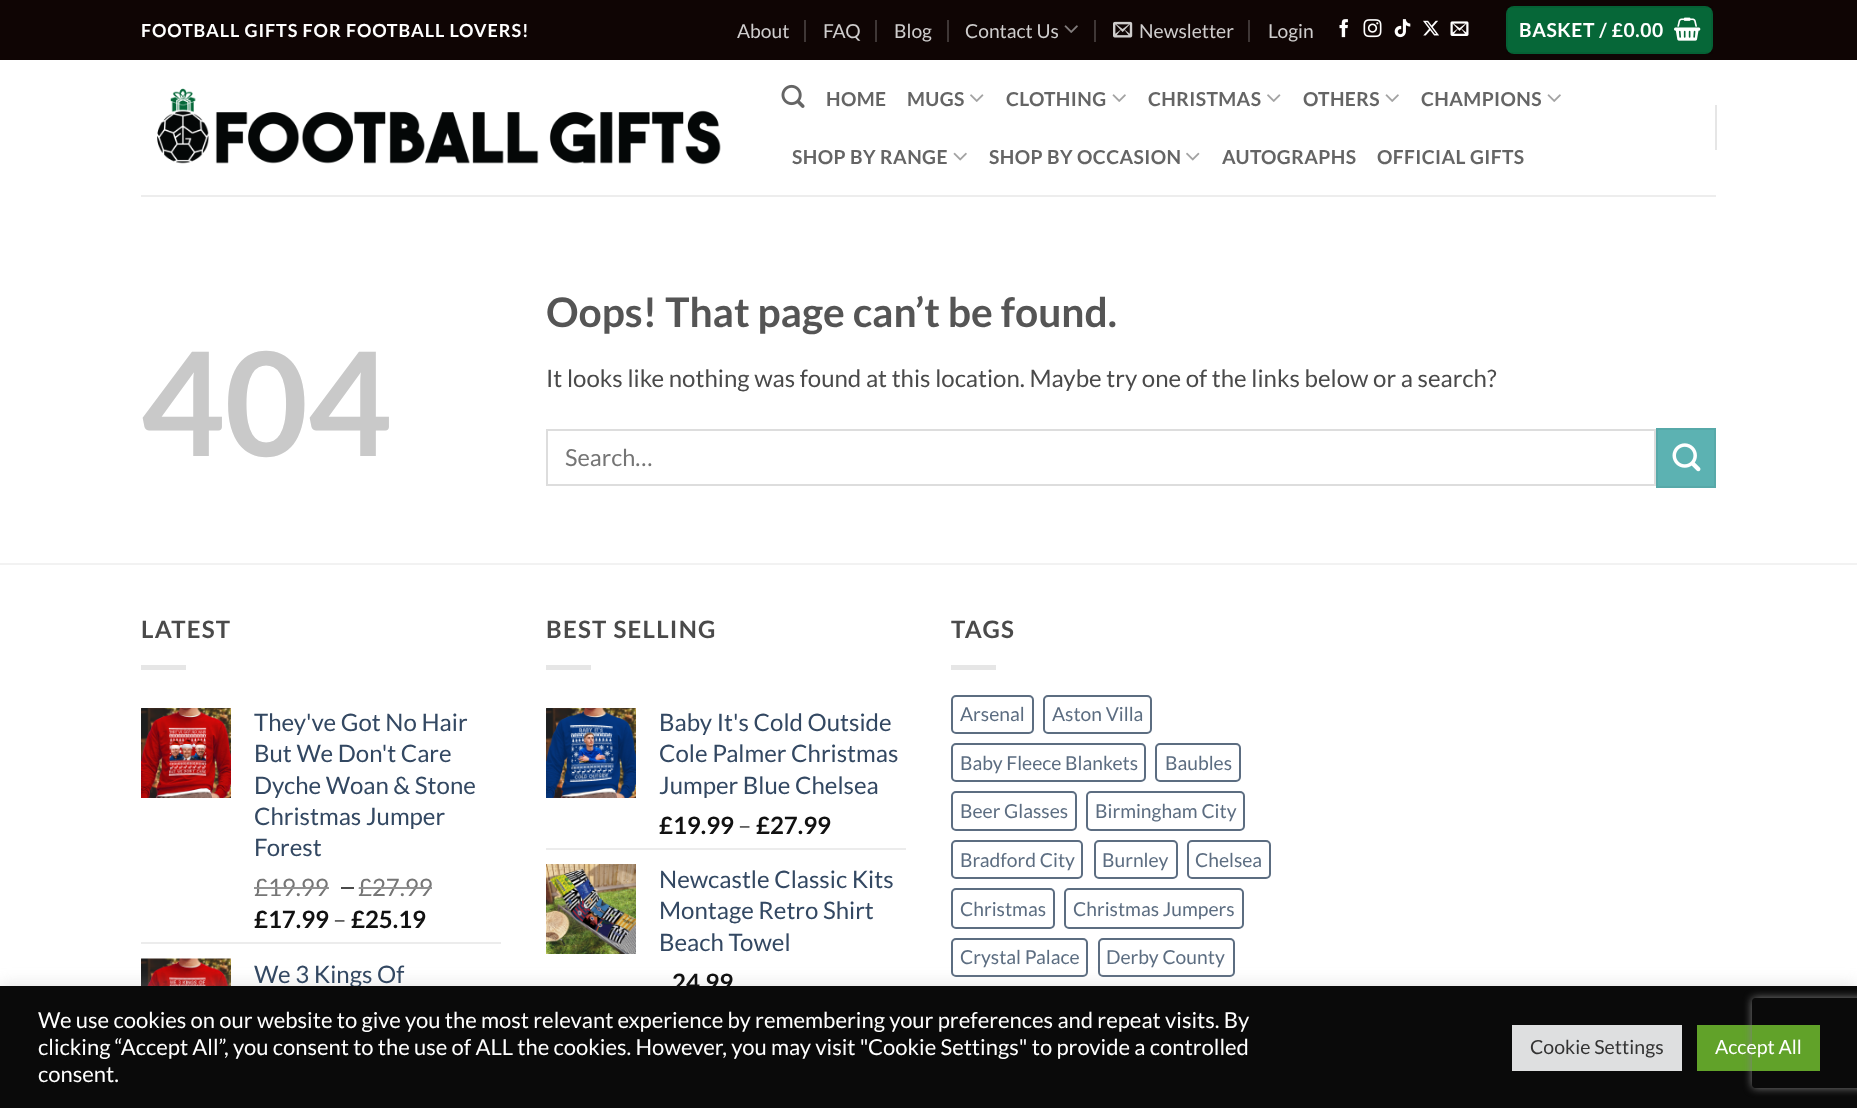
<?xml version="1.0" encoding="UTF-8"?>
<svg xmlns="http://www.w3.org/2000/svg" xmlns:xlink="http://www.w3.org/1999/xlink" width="1857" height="1108">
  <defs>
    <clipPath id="clip1"><path d="M 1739 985 h 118 v 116 h -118 z m 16 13 h 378 c 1.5 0 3 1.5 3 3 v 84 c 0 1.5 -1.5 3 -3 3 h -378 c -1.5 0 -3 -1.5 -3 -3 v -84 c 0 -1.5 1.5 -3 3 -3 z" clip-rule="evenodd" /></clipPath>
  </defs>
  <rect width="100%" height="100%" fill="#ffffff" />
  <rect width="1857" height="60" fill="#0f0504" />
  <rect x="804" y="20" width="2" height="22" fill="#3f3736" />
  <rect x="875" y="20" width="2" height="22" fill="#3f3736" />
  <rect x="947" y="20" width="2" height="22" fill="#3f3736" />
  <image x="1064" y="25" width="14" height="8" xlink:href="image1.png" />
  <rect x="1094" y="20" width="2" height="22" fill="#3f3736" />
  <image x="1113" y="21" width="20" height="17" xlink:href="image2.png" />
  <rect x="1248" y="20" width="2" height="22" fill="#3f3736" />
  <image x="1339" y="19" width="9" height="19" xlink:href="image3.png" />
  <image x="1363" y="19" width="19" height="19" xlink:href="image4.png" />
  <image x="1394" y="19" width="17" height="19" xlink:href="image5.png" />
  <image x="1423" y="20" width="16" height="16" xlink:href="image6.png" />
  <image x="1450" y="21" width="19" height="15" xlink:href="image7.png" />
  <rect x="1506" y="6" width="207" height="48" rx="8" fill="#066738" />
  <rect x="1507" y="7" width="205" height="46" fill="none" stroke="#000000" stroke-opacity="0.05" stroke-width="2" />
  <image x="1674" y="17" width="27" height="24" xlink:href="image8.png" />
  <image x="157" y="88" width="564" height="77" xlink:href="image9.png" />
  <image x="781" y="84" width="24" height="24" xlink:href="image10.png" />
  <image x="970" y="94" width="14" height="8" xlink:href="image11.png" />
  <image x="1112" y="94" width="14" height="8" xlink:href="image12.png" />
  <image x="1267" y="94" width="14" height="8" xlink:href="image11.png" />
  <image x="1385" y="94" width="14" height="8" xlink:href="image12.png" />
  <image x="1547" y="94" width="14" height="8" xlink:href="image12.png" />
  <image x="953" y="152" width="14" height="9" xlink:href="image13.png" />
  <image x="1186" y="152" width="14" height="9" xlink:href="image14.png" />
  <rect x="1715" y="105" width="2" height="45" fill="#e6e6e6" />
  <rect x="141" y="195" width="1575" height="2" fill="#ededed" />
  <rect x="547" y="430" width="1108" height="55" fill="none" stroke="#dddddd" stroke-width="2" />
  <rect x="1657" y="429" width="58" height="58" fill="#5cb2b2" stroke="#57a9a9" stroke-width="2" />
  <image x="1672" y="443" width="29" height="29" xlink:href="image15.png" />
  <rect y="563" width="1857" height="2" fill="#f2f2f2" />
  <rect x="141" y="665" width="45" height="5" fill="#e6e6e6" />
  <image x="141" y="708" width="90" height="90" xlink:href="image16.png" />
  <rect x="341" y="887" width="13" height="2" fill="#4a4a4a" />
  <rect x="141" y="942" width="360" height="2" fill="#ececec" />
  <image x="141" y="958" width="90" height="28" xlink:href="image17.png" />
  <rect x="546" y="665" width="45" height="5" fill="#e6e6e6" />
  <image x="546" y="708" width="90" height="90" xlink:href="image18.png" />
  <rect x="546" y="848" width="360" height="2" fill="#ececec" />
  <image x="546" y="864" width="90" height="90" xlink:href="image19.png" />
  <rect x="951" y="665" width="45" height="5" fill="#e6e6e6" />
  <rect x="952" y="696" width="81" height="37" rx="4" fill="none" stroke="#5c6d81" stroke-width="2" />
  <rect x="1044" y="696" width="107" height="37" rx="4" fill="none" stroke="#5c6d81" stroke-width="2" />
  <rect x="952" y="744" width="193" height="37" rx="4" fill="none" stroke="#5c6d81" stroke-width="2" />
  <rect x="1156" y="744" width="84" height="37" rx="4" fill="none" stroke="#5c6d81" stroke-width="2" />
  <rect x="952" y="792" width="124" height="38" rx="4" fill="none" stroke="#5c6d81" stroke-width="2" />
  <rect x="1087" y="792" width="157" height="38" rx="4" fill="none" stroke="#5c6d81" stroke-width="2" />
  <rect x="952" y="841" width="130" height="37" rx="4" fill="none" stroke="#5c6d81" stroke-width="2" />
  <rect x="1095" y="841" width="82" height="37" rx="4" fill="none" stroke="#5c6d81" stroke-width="2" />
  <rect x="1188" y="841" width="82" height="37" rx="4" fill="none" stroke="#5c6d81" stroke-width="2" />
  <rect x="952" y="889" width="102" height="39" rx="4" fill="none" stroke="#5c6d81" stroke-width="2" />
  <rect x="1065" y="889" width="178" height="39" rx="4" fill="none" stroke="#5c6d81" stroke-width="2" />
  <rect x="952" y="939" width="135" height="37" rx="4" fill="none" stroke="#5c6d81" stroke-width="2" />
  <rect x="1099" y="939" width="135" height="37" rx="4" fill="none" stroke="#5c6d81" stroke-width="2" />
  <rect y="984" width="1857" height="123" fill="#acabab" fill-opacity="0.3" filter="blur(7.5px)" />
  <text x="141" y="37" style="font-family: Lato; font-size: 18px; font-weight: bold; letter-spacing: 0.9px; fill: #ffffff">FOOTBALL GIFTS FOR FOOTBALL LOVERS!</text>
  <text x="737" y="38" style="font-family: Lato; font-size: 19.25px; fill: #cfcdcd">About</text>
  <text x="823" y="38" style="font-family: Lato; font-size: 19.25px; fill: #cfcdcd">FAQ</text>
  <text x="894" y="38" style="font-family: Lato; font-size: 19.25px; fill: #cfcdcd">Blog</text>
  <text x="965" y="38" style="font-family: Lato; font-size: 19.25px; fill: #cfcdcd">Contact Us</text>
  <text x="1139" y="38" style="font-family: Lato; font-size: 19.25px; fill: #cfcdcd">Newsletter</text>
  <text x="1268" y="38" style="font-family: Lato; font-size: 19.25px; fill: #cfcdcd">Login</text>
  <text x="1519" y="37" style="font-family: Lato; font-size: 19.25px; font-weight: bold; letter-spacing: 0.6px; fill: #ffffff">BASKET / £0.00</text>
  <text x="826" y="106" style="font-family: Lato; font-size: 19.25px; font-weight: bold; letter-spacing: 0.4px; fill: #656565">HOME</text>
  <text x="907" y="106" style="font-family: Lato; font-size: 19.25px; font-weight: bold; letter-spacing: 0.4px; fill: #656565">MUGS</text>
  <text x="1006" y="106" style="font-family: Lato; font-size: 19.25px; font-weight: bold; letter-spacing: 0.4px; fill: #656565">CLOTHING</text>
  <text x="1148" y="106" style="font-family: Lato; font-size: 19.25px; font-weight: bold; letter-spacing: 0.4px; fill: #656565">CHRISTMAS</text>
  <text x="1303" y="106" style="font-family: Lato; font-size: 19.25px; font-weight: bold; letter-spacing: 0.4px; fill: #656565">OTHERS</text>
  <text x="1421" y="106" style="font-family: Lato; font-size: 19.25px; font-weight: bold; letter-spacing: 0.4px; fill: #656565">CHAMPIONS</text>
  <text x="792" y="164" style="font-family: Lato; font-size: 19.25px; font-weight: bold; letter-spacing: 0.4px; fill: #656565">SHOP BY RANGE</text>
  <text x="989" y="164" style="font-family: Lato; font-size: 19.25px; font-weight: bold; letter-spacing: 0.4px; fill: #656565">SHOP BY OCCASION</text>
  <text x="1222" y="164" style="font-family: Lato; font-size: 19.25px; font-weight: bold; letter-spacing: 0.4px; fill: #656565">AUTOGRAPHS</text>
  <text x="1377" y="164" style="font-family: Lato; font-size: 19.25px; font-weight: bold; letter-spacing: 0.4px; fill: #656565">OFFICIAL GIFTS</text>
  <text x="141" y="456" style="font-family: Lato; font-size: 144px; font-weight: bold; fill: #c9c9c9">404</text>
  <text x="546" y="327" style="font-family: Lato; font-size: 40.75px; font-weight: bold; fill: #555555">Oops! That page can’t be found.</text>
  <text x="546" y="387" style="font-family: Lato; font-size: 24px; fill: #4a4a4a">It looks like nothing was found at this location. Maybe try one of the links below or a search?</text>
  <text x="565" y="466" style="font-family: Lato; font-size: 23.5px; fill: #757575">Search…</text>
  <text x="141" y="638" style="font-family: Lato; font-size: 24px; font-weight: bold; letter-spacing: 1.25px; fill: #4a4a4a">LATEST</text>
  <text x="254" y="731" style="font-family: Lato; font-size: 24px; fill: #334862">They've Got No Hair</text>
  <text x="254" y="762" style="font-family: Lato; font-size: 24px; fill: #334862">But We Don't Care</text>
  <text x="254" y="794" style="font-family: Lato; font-size: 24px; fill: #334862">Dyche Woan &amp; Stone</text>
  <text x="254" y="825" style="font-family: Lato; font-size: 24px; fill: #334862">Christmas Jumper</text>
  <text x="254" y="856" style="font-family: Lato; font-size: 24px; fill: #334862">Forest</text>
  <text x="254" y="896" style="font-family: Lato; font-size: 24px; fill: #757575">£19.99</text>
  <rect x="254" y="887" width="75" height="2" fill="#929292" />
  <text x="358" y="896" style="font-family: Lato; font-size: 24px; fill: #757575">£27.99</text>
  <rect x="359" y="887" width="73" height="2" fill="#929292" />
  <text x="254" y="928" style="font-family: Lato; font-size: 24px; font-weight: bold; fill: #111111">£17.99</text>
  <text x="333" y="928" style="font-family: Lato; font-size: 24px; fill: #4a4a4a">–</text>
  <text x="351" y="928" style="font-family: Lato; font-size: 24px; font-weight: bold; fill: #111111">£25.19</text>
  <text x="254" y="983" style="font-family: Lato; font-size: 24px; fill: #334862">We 3 Kings Of</text>
  <text x="546" y="638" style="font-family: Lato; font-size: 24px; font-weight: bold; letter-spacing: 1.25px; fill: #4a4a4a">BEST SELLING</text>
  <text x="659" y="731" style="font-family: Lato; font-size: 24px; fill: #334862">Baby It's Cold Outside</text>
  <text x="659" y="762" style="font-family: Lato; font-size: 24px; fill: #334862">Cole Palmer Christmas</text>
  <text x="659" y="794" style="font-family: Lato; font-size: 24px; fill: #334862">Jumper Blue Chelsea</text>
  <text x="659" y="834" style="font-family: Lato; font-size: 24px; font-weight: bold; fill: #111111">£19.99</text>
  <text x="738" y="834" style="font-family: Lato; font-size: 24px; fill: #4a4a4a">–</text>
  <text x="756" y="834" style="font-family: Lato; font-size: 24px; font-weight: bold; fill: #111111">£27.99</text>
  <text x="659" y="888" style="font-family: Lato; font-size: 24px; fill: #334862">Newcastle Classic Kits</text>
  <text x="659" y="919" style="font-family: Lato; font-size: 24px; fill: #334862">Montage Retro Shirt</text>
  <text x="659" y="951" style="font-family: Lato; font-size: 24px; fill: #334862">Beach Towel</text>
  <text x="672" y="991" style="font-family: Lato; font-size: 24px; font-weight: bold; fill: #111111">24.99</text>
  <text x="951" y="638" style="font-family: Lato; font-size: 24px; font-weight: bold; letter-spacing: 1.25px; fill: #4a4a4a">TAGS</text>
  <text x="960" y="721" style="font-family: Lato; font-size: 19.25px; fill: #5c6d81">Arsenal</text>
  <text x="1052" y="721" style="font-family: Lato; font-size: 19.25px; fill: #5c6d81">Aston Villa</text>
  <text x="960" y="770" style="font-family: Lato; font-size: 19.25px; fill: #5c6d81">Baby Fleece Blankets</text>
  <text x="1165" y="770" style="font-family: Lato; font-size: 19.25px; fill: #5c6d81">Baubles</text>
  <text x="960" y="818" style="font-family: Lato; font-size: 19.25px; fill: #5c6d81">Beer Glasses</text>
  <text x="1095" y="818" style="font-family: Lato; font-size: 19.25px; fill: #5c6d81">Birmingham City</text>
  <text x="960" y="867" style="font-family: Lato; font-size: 19.25px; fill: #5c6d81">Bradford City</text>
  <text x="1102" y="867" style="font-family: Lato; font-size: 19.25px; fill: #5c6d81">Burnley</text>
  <text x="1195" y="867" style="font-family: Lato; font-size: 19.25px; fill: #5c6d81">Chelsea</text>
  <text x="960" y="916" style="font-family: Lato; font-size: 19.25px; fill: #5c6d81">Christmas</text>
  <text x="1073" y="916" style="font-family: Lato; font-size: 19.25px; fill: #5c6d81">Christmas Jumpers</text>
  <text x="960" y="964" style="font-family: Lato; font-size: 19.25px; fill: #5c6d81">Crystal Palace</text>
  <text x="1106" y="964" style="font-family: Lato; font-size: 19.25px; fill: #5c6d81">Derby County</text>
  <rect y="986" width="1857" height="122" fill="#0a0a0a" />
  <text x="38" y="1028" style="font-family: Lato; font-size: 22px; fill: #ffffff">We use cookies on our website to give you the most relevant experience by remembering your preferences and repeat visits. By</text>
  <text x="38" y="1055" style="font-family: Lato; font-size: 22px; fill: #ffffff">clicking “Accept All”, you consent to the use of ALL the cookies. However, you may visit "Cookie Settings" to provide a controlled</text>
  <text x="38" y="1082" style="font-family: Lato; font-size: 22px; fill: #ffffff">consent.</text>
  <rect x="1512" y="1025" width="170" height="46" fill="#dedfe0" />
  <text x="1530" y="1054" style="font-family: Lato; font-size: 19.5px; fill: #333333">Cookie Settings</text>
  <rect x="1697" y="1025" width="123" height="46" fill="#61a229" />
  <g clip-path="url(#clip1)">
    <rect x="1752" y="998" width="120" height="90" rx="3" fill="#808080" filter="blur(4px)" />
  </g>
  <text x="1715" y="1054" style="font-family: Lato; font-size: 19.5px; fill: #ffffff">Accept All</text>
</svg>
